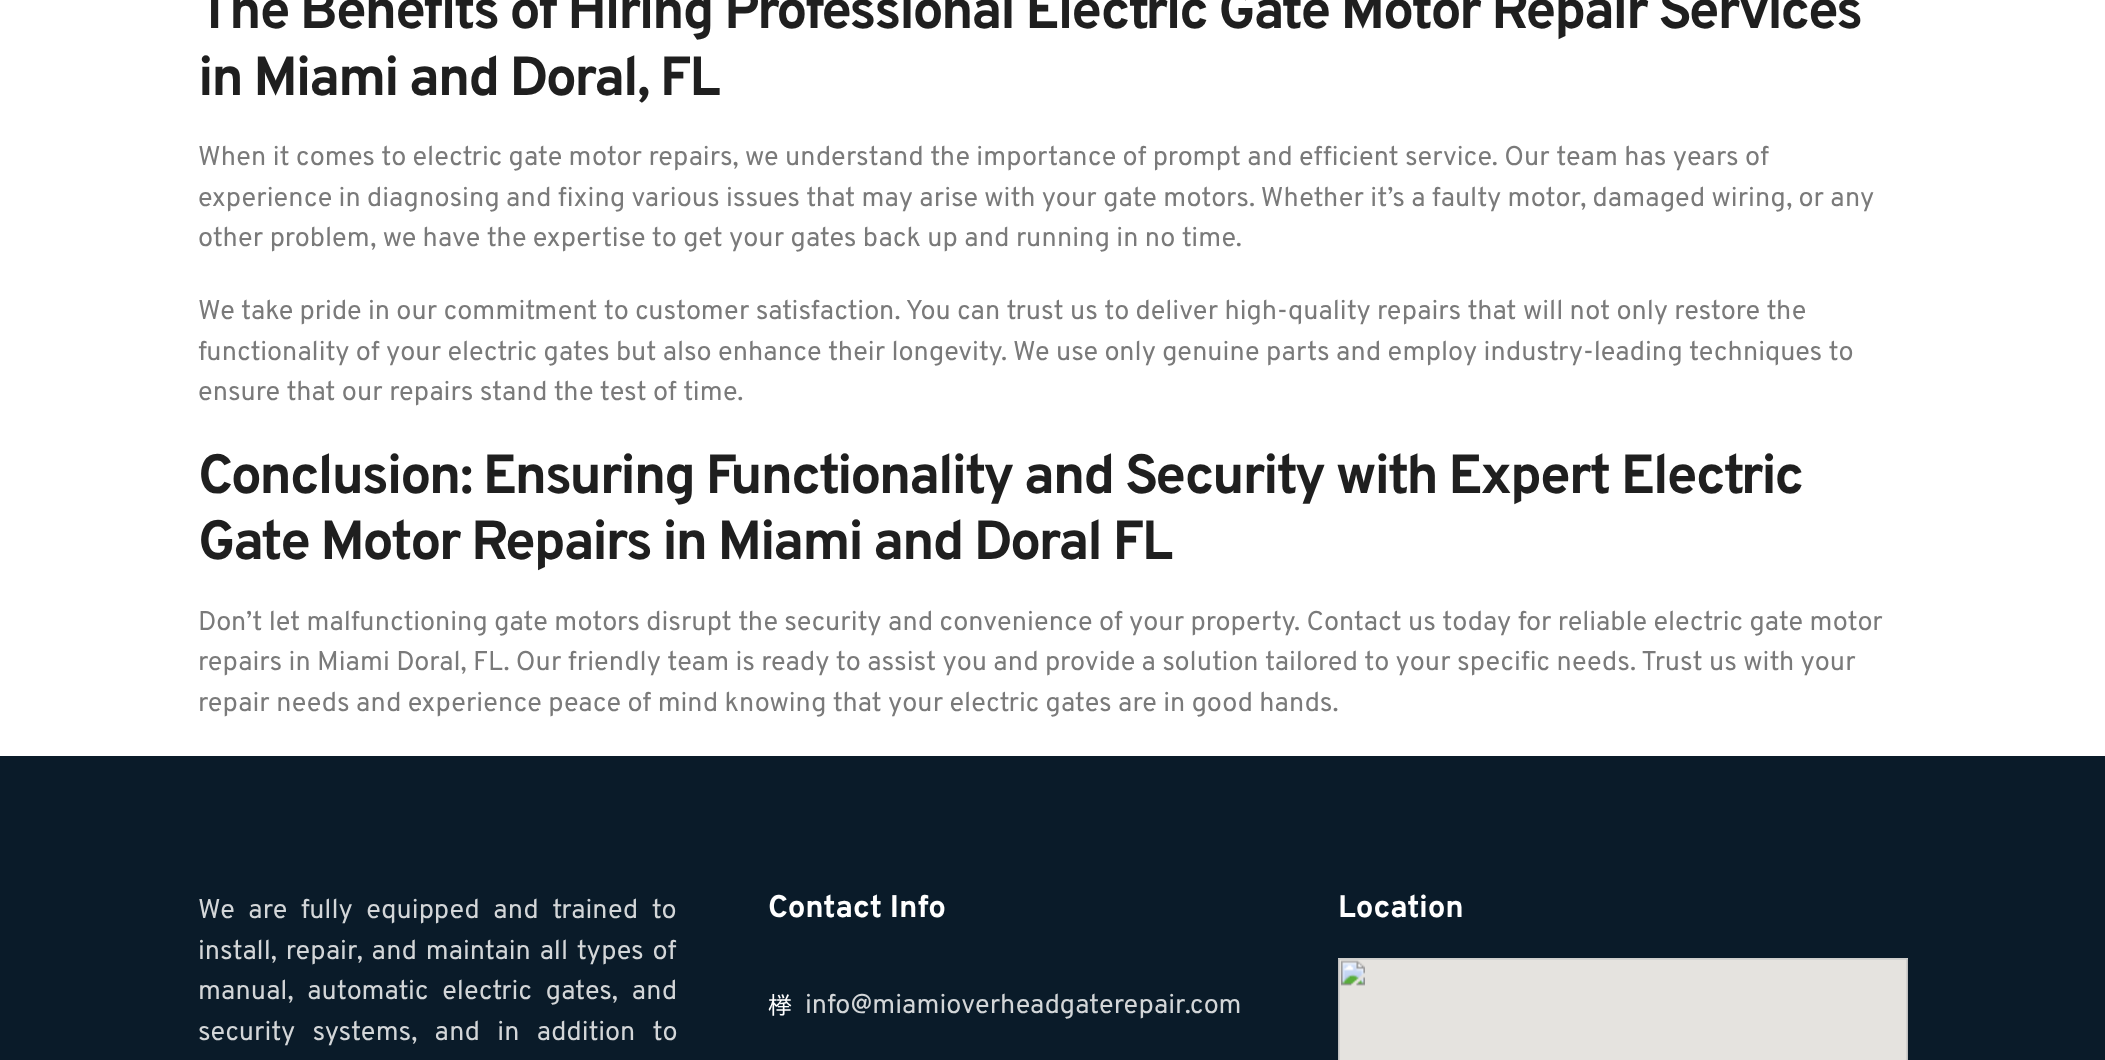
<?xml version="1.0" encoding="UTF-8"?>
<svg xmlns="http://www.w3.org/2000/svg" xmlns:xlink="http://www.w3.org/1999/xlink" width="2105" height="1060">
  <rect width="100%" height="100%" fill="#ffffff" />
  <rect y="756" width="2105" height="304" fill="#0a1b29" />
  <image x="1338" y="958" width="570" height="102" xlink:href="image1.png" />
  <text x="198" y="28" style="font-family: Overpass; font-size: 55.2px; font-weight: bold; letter-spacing: -2.25px; fill: #1f1f1f">The Benefits of Hiring Professional Electric Gate Motor Repair Services</text>
  <text x="198" y="95" style="font-family: Overpass; font-size: 55.2px; font-weight: bold; letter-spacing: -2.25px; fill: #1f1f1f">in Miami and Doral, FL</text>
  <text x="198" y="165" style="font-family: Overpass; font-size: 27px; fill: #7a7a7a">When it comes to electric gate motor repairs, we understand the importance of prompt and efficient service. Our team has years of</text>
  <text x="198" y="206" style="font-family: Overpass; font-size: 27px; fill: #7a7a7a">experience in diagnosing and fixing various issues that may arise with your gate motors. Whether it’s a faulty motor, damaged wiring, or any</text>
  <text x="198" y="246" style="font-family: Overpass; font-size: 27px; fill: #7a7a7a">other problem, we have the expertise to get your gates back up and running in no time.</text>
  <text x="198" y="319" style="font-family: Overpass; font-size: 27px; fill: #7a7a7a">We take pride in our commitment to customer satisfaction. You can trust us to deliver high-quality repairs that will not only restore the</text>
  <text x="198" y="360" style="font-family: Overpass; font-size: 27px; fill: #7a7a7a">functionality of your electric gates but also enhance their longevity. We use only genuine parts and employ industry-leading techniques to</text>
  <text x="198" y="400" style="font-family: Overpass; font-size: 27px; fill: #7a7a7a">ensure that our repairs stand the test of time.</text>
  <text x="198" y="493" style="font-family: Overpass; font-size: 55.2px; font-weight: bold; letter-spacing: -2.25px; fill: #1f1f1f">Conclusion: Ensuring Functionality and Security with Expert Electric</text>
  <text x="198" y="559" style="font-family: Overpass; font-size: 55.2px; font-weight: bold; letter-spacing: -2.25px; fill: #1f1f1f">Gate Motor Repairs in Miami and Doral FL</text>
  <text x="198" y="630" style="font-family: Overpass; font-size: 27px; fill: #7a7a7a">Don’t let malfunctioning gate motors disrupt the security and convenience of your property. Contact us today for reliable electric gate motor</text>
  <text x="198" y="670" style="font-family: Overpass; font-size: 27px; fill: #7a7a7a">repairs in Miami Doral, FL. Our friendly team is ready to assist you and provide a solution tailored to your specific needs. Trust us with your</text>
  <text x="198" y="711" style="font-family: Overpass; font-size: 27px; fill: #7a7a7a">repair needs and experience peace of mind knowing that your electric gates are in good hands.</text>
  <text x="198" y="918" word-spacing="7.25" style="font-family: Overpass; font-size: 27px; fill: #d3d6d8">We are fully equipped and trained to</text>
  <text x="198" y="959" word-spacing="2.5" style="font-family: Overpass; font-size: 27px; fill: #d3d6d8">install, repair, and maintain all types of</text>
  <text x="198" y="999" word-spacing="7.5" style="font-family: Overpass; font-size: 27px; fill: #d3d6d8">manual, automatic electric gates, and</text>
  <text x="198" y="1040" word-spacing="11" style="font-family: Overpass; font-size: 27px; fill: #d3d6d8">security systems, and in addition to</text>
  <text x="768" y="917" style="font-family: Overpass; font-size: 31.25px; font-weight: bold; fill: #ffffff">Contact Info</text>
  <text x="768" y="1014" style="font-family: IPAGothic; font-size: 24px; fill: #ffffff">﨔</text>
  <text x="805" y="1013" style="font-family: Overpass; font-size: 27px; fill: #d3d6d8">info@miamioverheadgaterepair.com</text>
  <text x="1338" y="917" style="font-family: Overpass; font-size: 31.25px; font-weight: bold; fill: #ffffff">Location</text>
</svg>
